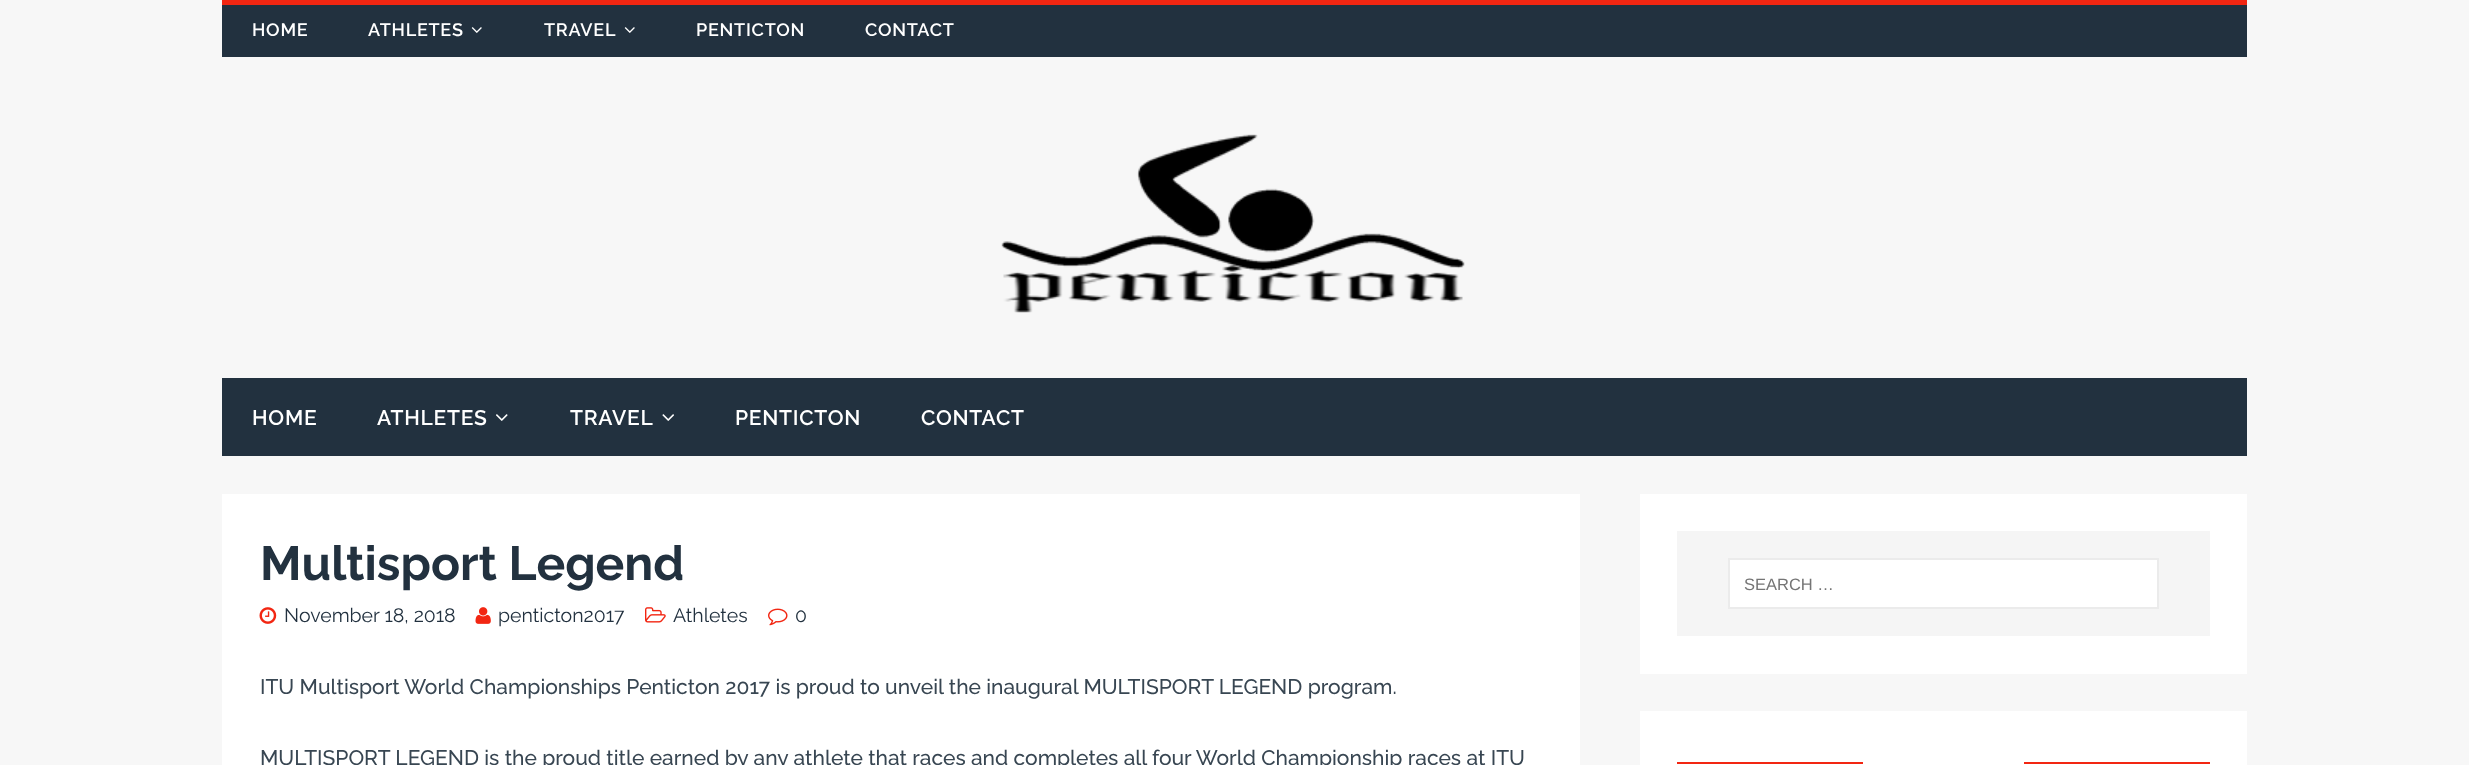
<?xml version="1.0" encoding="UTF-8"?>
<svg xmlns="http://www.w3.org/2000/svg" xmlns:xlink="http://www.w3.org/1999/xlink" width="2469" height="765">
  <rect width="100%" height="100%" fill="#f7f7f7" />
  <rect x="222" y="5" width="2025" height="52" fill="#22313f" />
  <rect x="222" width="2025" height="5" fill="#f22612" />
  <image x="471" y="27" width="11" height="6" xlink:href="image1.png" />
  <image x="624" y="27" width="11" height="6" xlink:href="image1.png" />
  <image x="1001" y="134" width="464" height="179" xlink:href="image2.png" />
  <rect x="222" y="378" width="2025" height="78" fill="#22313f" />
  <image x="496" y="414" width="12" height="7" xlink:href="image3.png" />
  <image x="662" y="414" width="12" height="7" xlink:href="image4.png" />
  <rect x="222" y="494" width="1358" height="271" fill="#ffffff" />
  <image x="259" y="607" width="18" height="17" xlink:href="image5.png" />
  <image x="475" y="607" width="16" height="17" xlink:href="image6.png" />
  <image x="645" y="607" width="21" height="16" xlink:href="image7.png" />
  <image x="768" y="608" width="20" height="18" xlink:href="image8.png" />
  <rect x="1640" y="494" width="607" height="180" fill="#ffffff" />
  <rect x="1677" y="531" width="533" height="105" fill="#f5f5f5" />
  <rect x="1729" y="559" width="429" height="49" fill="#ffffff" stroke="#ebebeb" stroke-width="2" />
  <rect x="1640" y="711" width="607" height="54" fill="#ffffff" />
  <rect x="1677" y="762" width="186" height="2" fill="#f22612" />
  <rect x="2024" y="762" width="186" height="2" fill="#f22612" />
  <text x="252" y="36" style="font-family: Raleway; font-size: 18px; font-weight: 600; letter-spacing: 0.75px; fill: #ffffff">HOME</text>
  <text x="368" y="36" style="font-family: Raleway; font-size: 18px; font-weight: 600; letter-spacing: 0.75px; fill: #ffffff">ATHLETES</text>
  <text x="544" y="36" style="font-family: Raleway; font-size: 18px; font-weight: 600; letter-spacing: 0.75px; fill: #ffffff">TRAVEL</text>
  <text x="696" y="36" style="font-family: Raleway; font-size: 18px; font-weight: 600; letter-spacing: 0.75px; fill: #ffffff">PENTICTON</text>
  <text x="865" y="36" style="font-family: Raleway; font-size: 18px; font-weight: 600; letter-spacing: 0.75px; fill: #ffffff">CONTACT</text>
  <text x="252" y="425" style="font-family: Raleway; font-size: 21px; font-weight: 600; letter-spacing: 0.75px; fill: #ffffff">HOME</text>
  <text x="377" y="425" style="font-family: Raleway; font-size: 21px; font-weight: 600; letter-spacing: 0.75px; fill: #ffffff">ATHLETES</text>
  <text x="570" y="425" style="font-family: Raleway; font-size: 21px; font-weight: 600; letter-spacing: 0.75px; fill: #ffffff">TRAVEL</text>
  <text x="735" y="425" style="font-family: Raleway; font-size: 21px; font-weight: 600; letter-spacing: 0.75px; fill: #ffffff">PENTICTON</text>
  <text x="921" y="425" style="font-family: Raleway; font-size: 21px; font-weight: 600; letter-spacing: 0.75px; fill: #ffffff">CONTACT</text>
  <text x="260" y="580" style="font-family: Raleway; font-size: 48px; font-weight: bold; fill: #22313f">Multisport Legend</text>
  <text x="284" y="622" style="font-family: Raleway; font-size: 19.5px; fill: #22313f">November 18, 2018</text>
  <text x="498" y="622" style="font-family: Raleway; font-size: 19.5px; fill: #22313f">penticton2017</text>
  <text x="673" y="622" style="font-family: Raleway; font-size: 19.5px; fill: #22313f">Athletes</text>
  <text x="795" y="622" style="font-family: Raleway; font-size: 19.5px; fill: #22313f">0</text>
  <text x="260" y="694" style="font-family: Raleway; font-size: 21px; font-weight: 500; fill: #384652">ITU Multisport World Championships Penticton 2017 is proud to unveil the inaugural MULTISPORT LEGEND program.</text>
  <text x="260" y="765" style="font-family: Raleway; font-size: 21px; font-weight: 500; fill: #384652">MULTISPORT LEGEND is the proud title earned by any athlete that races and completes all four World Championship races at ITU</text>
  <text x="1744" y="590" style="font-family: Liberation Sans; font-size: 16.5px; fill: #757575">SEARCH …</text>
</svg>
